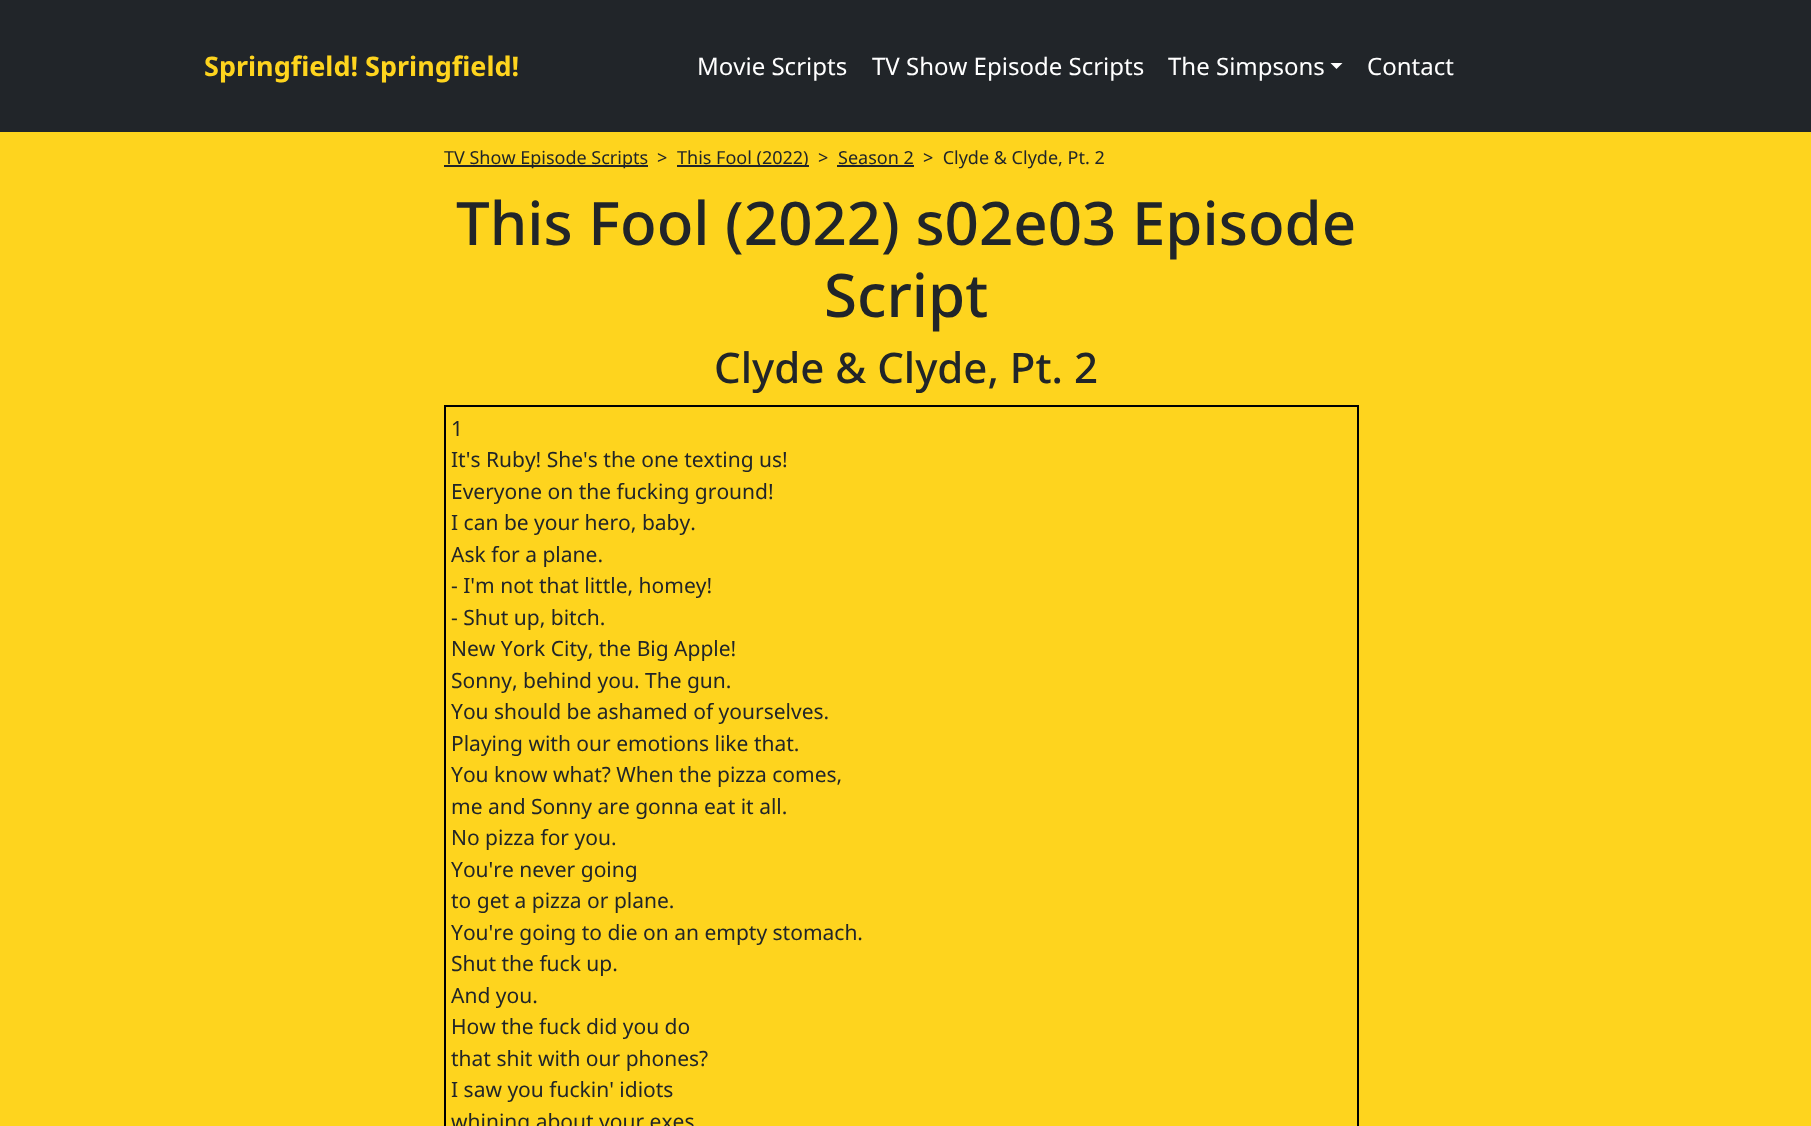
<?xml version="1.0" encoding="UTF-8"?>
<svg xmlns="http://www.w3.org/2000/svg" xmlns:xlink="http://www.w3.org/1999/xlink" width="1811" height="1126">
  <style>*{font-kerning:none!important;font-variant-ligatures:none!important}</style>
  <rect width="100%" height="100%" fill="#fed41e" />
  <rect width="1811" height="132" fill="#212529" />
  <path d="M 1330.5 63 h 12 l -6 6 z" fill="#ffffff" />
  <rect x="444" y="165" width="204" height="2" fill="#212529" />
  <rect x="677" y="165" width="132" height="2" fill="#212529" />
  <rect x="837" y="165" width="77" height="2" fill="#212529" />
  <rect x="445" y="406" width="913" height="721" fill="none" stroke="#000000" stroke-width="2" />
  <text x="204" y="76" style="font-family: Noto Sans; font-size: 27px; font-weight: bold; fill: #fed41e">Springfield! Springfield!</text>
  <text x="697" y="75" style="font-family: Noto Sans; font-size: 24px; fill: #ffffff">Movie Scripts</text>
  <text x="872" y="75" style="font-family: Noto Sans; font-size: 24px; fill: #ffffff">TV Show Episode Scripts</text>
  <text x="1168" y="75" style="font-family: Noto Sans; font-size: 24px; fill: #ffffff">The Simpsons</text>
  <text x="1367" y="75" style="font-family: Noto Sans; font-size: 24px; fill: #ffffff">Contact</text>
  <text x="444" y="164" style="font-family: Noto Sans; font-size: 18px; fill: #212529">TV Show Episode Scripts</text>
  <text x="657" y="164" style="font-family: Noto Sans; font-size: 18px; fill: #212529">&gt;</text>
  <text x="677" y="164" style="font-family: Noto Sans; font-size: 18px; fill: #212529">This Fool (2022)</text>
  <text x="818" y="164" style="font-family: Noto Sans; font-size: 18px; fill: #212529">&gt;</text>
  <text x="838" y="164" style="font-family: Noto Sans; font-size: 18px; fill: #212529">Season 2</text>
  <text x="923" y="164" style="font-family: Noto Sans; font-size: 18px; fill: #212529" xml:space="preserve">&gt;  Clyde &amp; Clyde, Pt. 2</text>
  <text x="456" y="245" style="font-family: Noto Sans; font-size: 60px; font-weight: 500; fill: #212529">This Fool (2022) s02e03 Episode</text>
  <text x="824" y="317" style="font-family: Noto Sans; font-size: 60px; font-weight: 500; fill: #212529">Script</text>
  <text x="714" y="383" style="font-family: Noto Sans; font-size: 42px; font-weight: 500; fill: #212529">Clyde &amp; Clyde, Pt. 2</text>
  <text x="451" y="436" style="font-family: Noto Sans; font-size: 21px; fill: #212529">1</text>
  <text x="451" y="467" style="font-family: Noto Sans; font-size: 21px; fill: #212529">It's Ruby! She's the one texting us!</text>
  <text x="451" y="499" style="font-family: Noto Sans; font-size: 21px; fill: #212529">Everyone on the fucking ground!</text>
  <text x="451" y="530" style="font-family: Noto Sans; font-size: 21px; fill: #212529">I can be your hero, baby.</text>
  <text x="451" y="562" style="font-family: Noto Sans; font-size: 21px; fill: #212529">Ask for a plane.</text>
  <text x="451" y="593" style="font-family: Noto Sans; font-size: 21px; fill: #212529">- I'm not that little, homey!</text>
  <text x="451" y="625" style="font-family: Noto Sans; font-size: 21px; fill: #212529">- Shut up, bitch.</text>
  <text x="451" y="656" style="font-family: Noto Sans; font-size: 21px; fill: #212529">New York City, the Big Apple!</text>
  <text x="451" y="688" style="font-family: Noto Sans; font-size: 21px; fill: #212529">Sonny, behind you. The gun.</text>
  <text x="451" y="719" style="font-family: Noto Sans; font-size: 21px; fill: #212529">You should be ashamed of yourselves.</text>
  <text x="451" y="751" style="font-family: Noto Sans; font-size: 21px; fill: #212529">Playing with our emotions like that.</text>
  <text x="451" y="782" style="font-family: Noto Sans; font-size: 21px; fill: #212529">You know what? When the pizza comes,</text>
  <text x="451" y="814" style="font-family: Noto Sans; font-size: 21px; fill: #212529">me and Sonny are gonna eat it all.</text>
  <text x="451" y="845" style="font-family: Noto Sans; font-size: 21px; fill: #212529">No pizza for you.</text>
  <text x="451" y="877" style="font-family: Noto Sans; font-size: 21px; fill: #212529">You're never going</text>
  <text x="451" y="908" style="font-family: Noto Sans; font-size: 21px; fill: #212529">to get a pizza or plane.</text>
  <text x="451" y="940" style="font-family: Noto Sans; font-size: 21px; fill: #212529">You're going to die on an empty stomach.</text>
  <text x="451" y="971" style="font-family: Noto Sans; font-size: 21px; fill: #212529">Shut the fuck up.</text>
  <text x="451" y="1003" style="font-family: Noto Sans; font-size: 21px; fill: #212529">And you.</text>
  <text x="451" y="1034" style="font-family: Noto Sans; font-size: 21px; fill: #212529">How the fuck did you do</text>
  <text x="451" y="1066" style="font-family: Noto Sans; font-size: 21px; fill: #212529">that shit with our phones?</text>
  <text x="451" y="1097" style="font-family: Noto Sans; font-size: 21px; fill: #212529">I saw you fuckin' idiots</text>
  <text x="451" y="1129" style="font-family: Noto Sans; font-size: 21px; fill: #212529">whining about your exes</text>
</svg>
